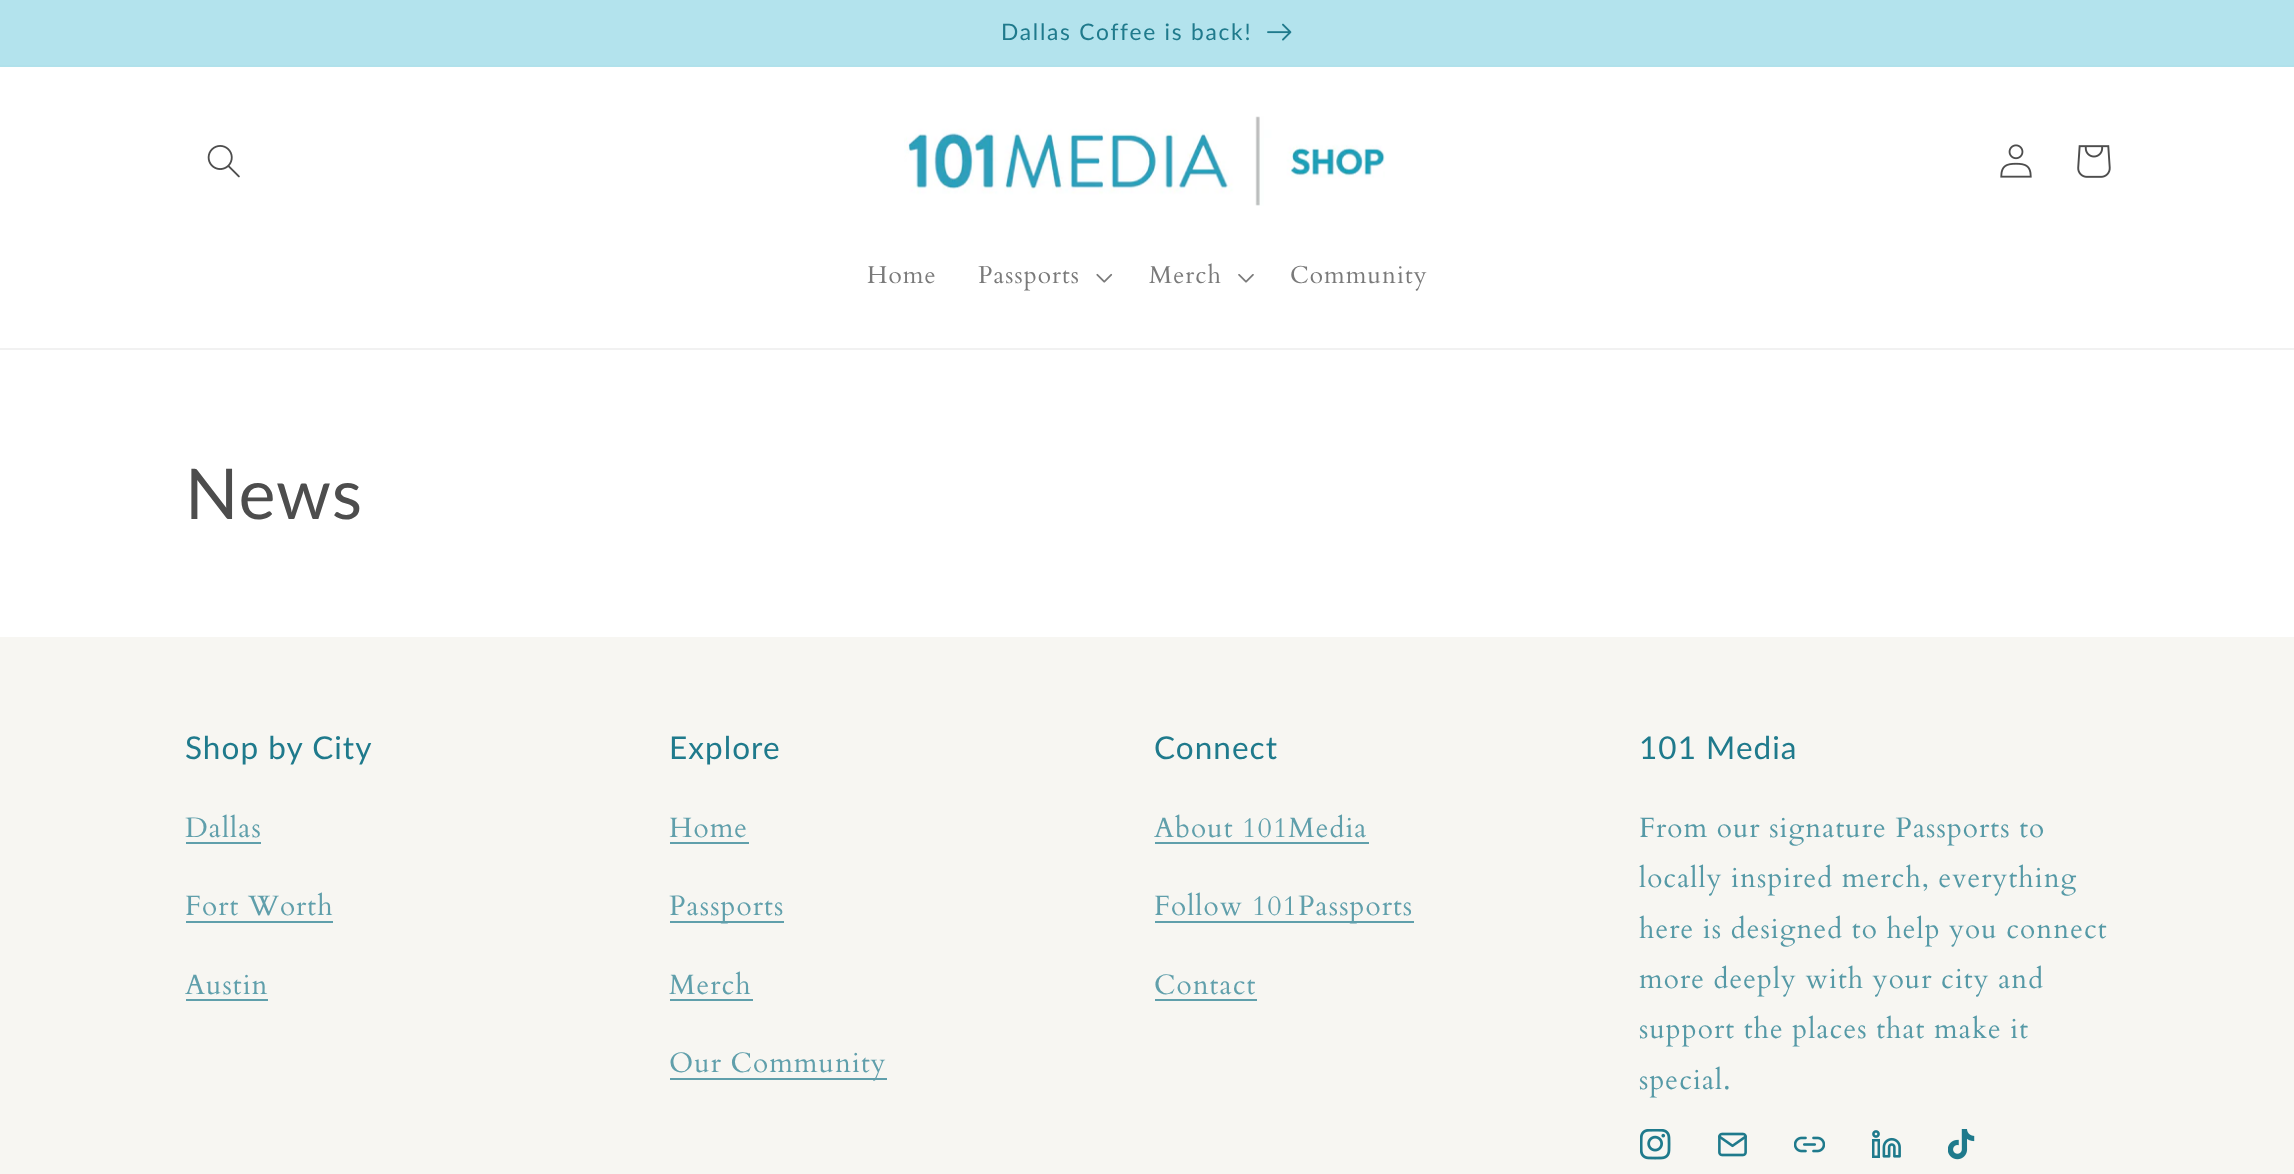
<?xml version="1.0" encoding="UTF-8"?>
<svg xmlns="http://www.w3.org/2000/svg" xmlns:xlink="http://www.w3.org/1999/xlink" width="2294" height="1174">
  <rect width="100%" height="100%" fill="#ffffff" />
  <rect y="65" width="2294" height="2" fill="#b0e1eb" />
  <rect width="2294" height="65" fill="#b3e3ed" />
  <image x="1267" y="23" width="25" height="18" xlink:href="image1.png" />
  <rect y="348" width="2294" height="2" fill="#f1f1f1" />
  <image x="207" y="145" width="33" height="33" xlink:href="image2.png" />
  <image x="904" y="116" width="481" height="90" xlink:href="image3.png" />
  <image x="2000" y="144" width="32" height="34" xlink:href="image4.png" />
  <image x="2077" y="145" width="34" height="33" xlink:href="image5.png" />
  <image x="1096" y="273" width="17" height="10" xlink:href="image6.png" />
  <image x="1238" y="274" width="16" height="9" xlink:href="image7.png" />
  <rect y="637" width="2294" height="537" fill="#f7f6f2" />
  <rect x="186" y="842" width="75" height="2" fill="#609fab" />
  <rect x="186" y="921" width="147" height="2" fill="#609fab" />
  <rect x="186" y="999" width="82" height="2" fill="#609fab" />
  <rect x="670" y="842" width="79" height="2" fill="#609fab" />
  <rect x="670" y="921" width="114" height="2" fill="#609fab" />
  <rect x="670" y="999" width="83" height="2" fill="#609fab" />
  <rect x="670" y="1078" width="217" height="2" fill="#609fab" />
  <rect x="1155" y="842" width="214" height="2" fill="#609fab" />
  <rect x="1155" y="921" width="259" height="2" fill="#609fab" />
  <rect x="1155" y="999" width="102" height="2" fill="#609fab" />
  <image x="1640" y="1129" width="31" height="31" xlink:href="image8.png" />
  <image x="1718" y="1132" width="29" height="25" xlink:href="image9.png" />
  <image x="1794" y="1136" width="31" height="17" xlink:href="image10.png" />
  <image x="1872" y="1130" width="29" height="28" xlink:href="image11.png" />
  <image x="1948" y="1129" width="27" height="31" xlink:href="image12.png" />
  <text x="1001" y="40" style="font-family: Lato; font-size: 22.75px; letter-spacing: 1.75px; fill: #1f7a8c">Dallas Coffee is back!</text>
  <text x="867" y="283" style="font-family: Cardo; font-size: 24.5px; letter-spacing: 1.05px; fill: #7a7a7a">Home</text>
  <text x="978" y="283" style="font-family: Cardo; font-size: 24.5px; letter-spacing: 1.05px; fill: #7a7a7a">Passports</text>
  <text x="1149" y="283" style="font-family: Cardo; font-size: 24.5px; letter-spacing: 1.05px; fill: #7a7a7a">Merch</text>
  <text x="1290" y="283" style="font-family: Cardo; font-size: 24.5px; letter-spacing: 1.05px; fill: #7a7a7a">Community</text>
  <text x="185" y="519" style="font-family: Lato; font-size: 70px; letter-spacing: 1.05px; fill: #4d4d4d">News</text>
  <text x="185" y="759" style="font-family: Lato; font-size: 31.5px; letter-spacing: 1.05px; fill: #1f7a8c">Shop by City</text>
  <text x="185" y="837" style="font-family: Cardo; font-size: 28px; letter-spacing: 1.05px; fill: #609fab">Dallas</text>
  <text x="185" y="915" style="font-family: Cardo; font-size: 28px; letter-spacing: 1.05px; fill: #609fab">Fort Worth</text>
  <text x="185" y="994" style="font-family: Cardo; font-size: 28px; letter-spacing: 1.05px; fill: #609fab">Austin</text>
  <text x="669" y="759" style="font-family: Lato; font-size: 31.5px; letter-spacing: 1.05px; fill: #1f7a8c">Explore</text>
  <text x="669" y="837" style="font-family: Cardo; font-size: 28px; letter-spacing: 1.05px; fill: #609fab">Home</text>
  <text x="669" y="915" style="font-family: Cardo; font-size: 28px; letter-spacing: 1.05px; fill: #609fab">Passports</text>
  <text x="669" y="994" style="font-family: Cardo; font-size: 28px; letter-spacing: 1.05px; fill: #609fab">Merch</text>
  <text x="669" y="1072" style="font-family: Cardo; font-size: 28px; letter-spacing: 1.05px; fill: #609fab">Our Community</text>
  <text x="1154" y="759" style="font-family: Lato; font-size: 31.5px; letter-spacing: 1.05px; fill: #1f7a8c">Connect</text>
  <text x="1154" y="837" style="font-family: Cardo; font-size: 28px; letter-spacing: 1.05px; fill: #609fab">About 101Media</text>
  <text x="1154" y="915" style="font-family: Cardo; font-size: 28px; letter-spacing: 1.05px; fill: #609fab">Follow 101Passports</text>
  <text x="1154" y="994" style="font-family: Cardo; font-size: 28px; letter-spacing: 1.05px; fill: #609fab">Contact</text>
  <text x="1639" y="759" style="font-family: Lato; font-size: 31.5px; letter-spacing: 1.05px; fill: #1f7a8c">101 Media</text>
  <text x="1639" y="837" style="font-family: Cardo; font-size: 28px; letter-spacing: 1.05px; fill: #5599a6">From our signature Passports to</text>
  <text x="1639" y="887" style="font-family: Cardo; font-size: 28px; letter-spacing: 1.05px; fill: #5599a6">locally inspired merch, everything</text>
  <text x="1639" y="938" style="font-family: Cardo; font-size: 28px; letter-spacing: 1.05px; fill: #5599a6">here is designed to help you connect</text>
  <text x="1639" y="988" style="font-family: Cardo; font-size: 28px; letter-spacing: 1.05px; fill: #5599a6">more deeply with your city and</text>
  <text x="1639" y="1038" style="font-family: Cardo; font-size: 28px; letter-spacing: 1.05px; fill: #5599a6">support the places that make it</text>
  <text x="1639" y="1089" style="font-family: Cardo; font-size: 28px; letter-spacing: 1.05px; fill: #5599a6">special.</text>
</svg>
